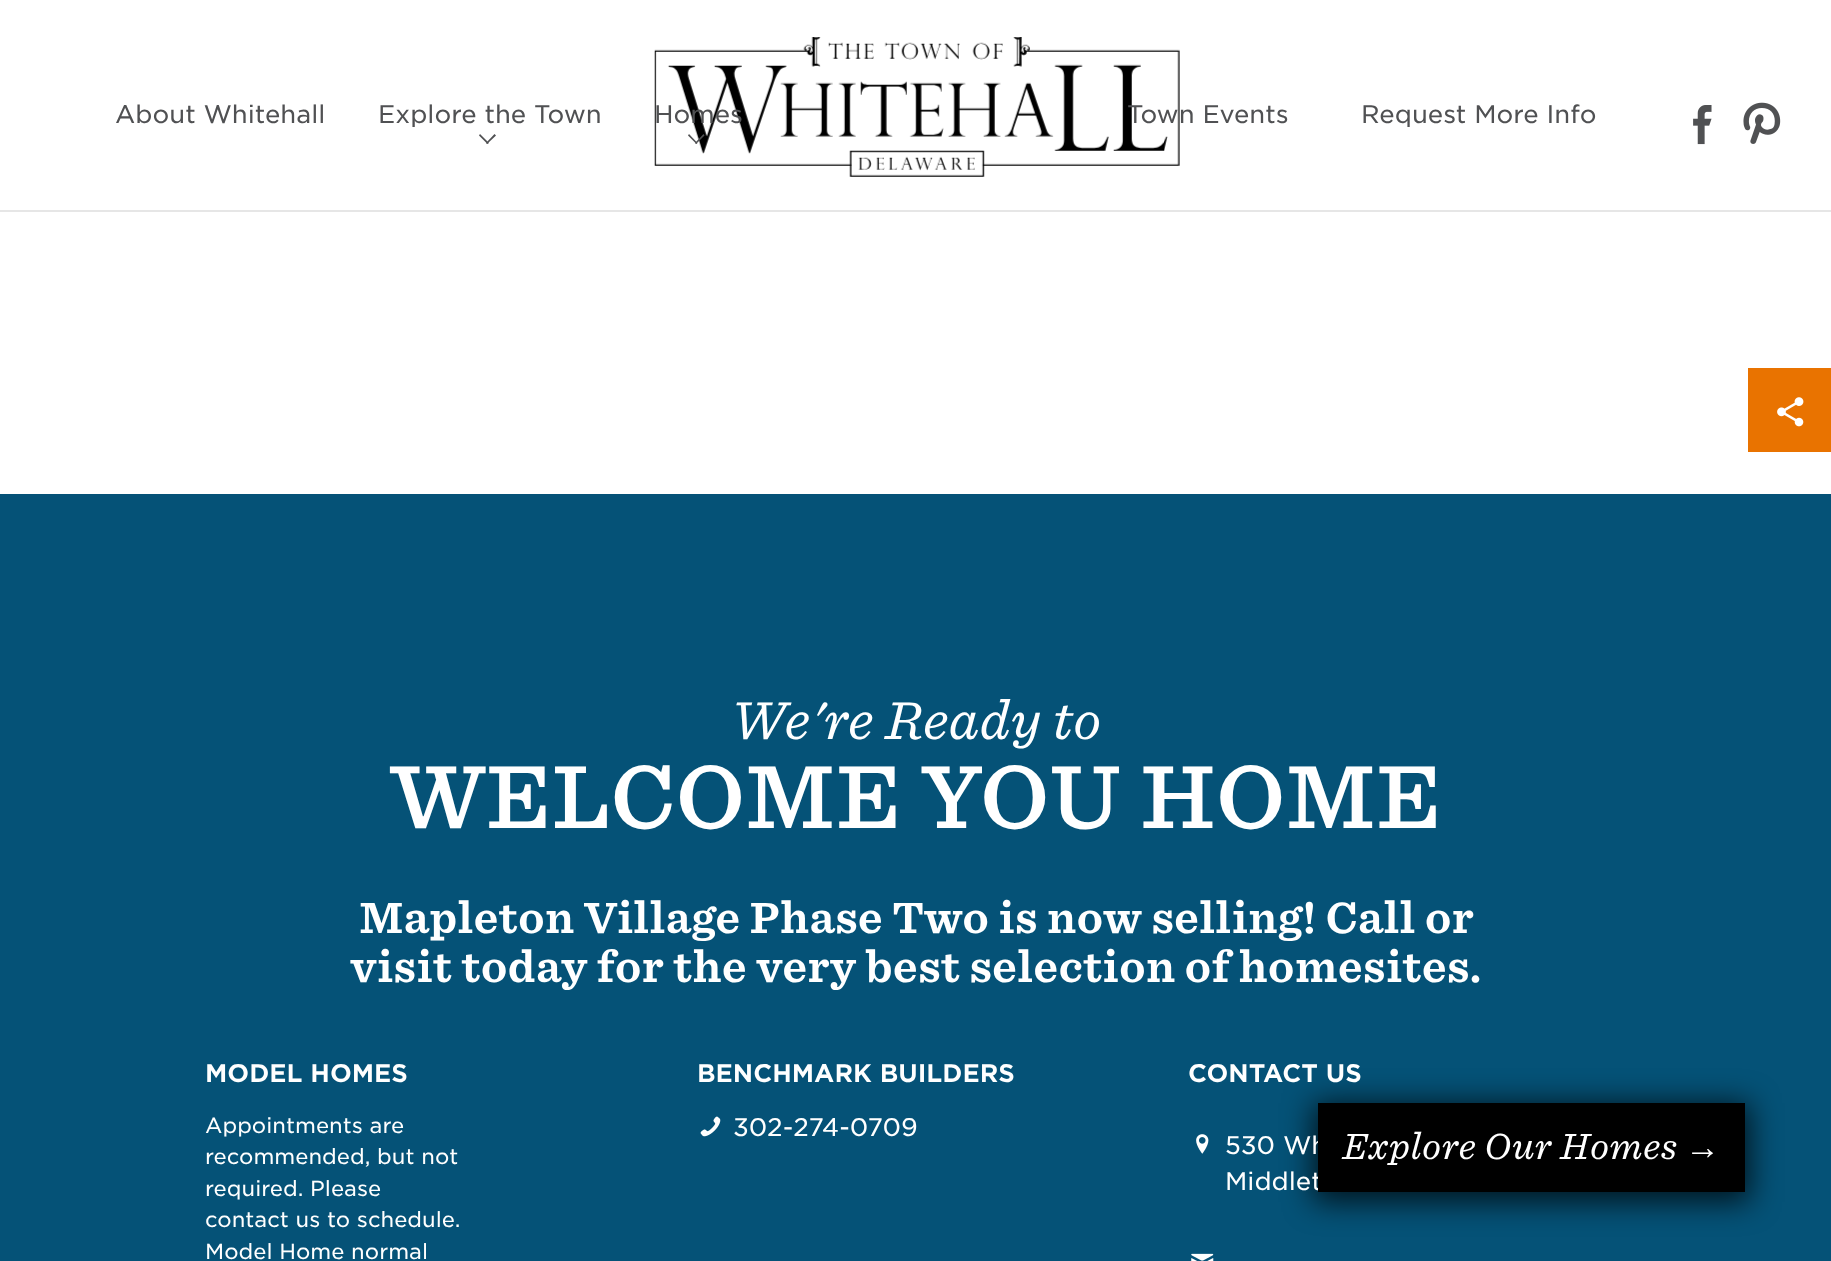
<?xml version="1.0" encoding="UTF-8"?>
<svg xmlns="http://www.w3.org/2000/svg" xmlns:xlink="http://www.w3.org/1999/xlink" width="1831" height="1261">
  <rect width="100%" height="100%" fill="#ffffff" />
  <rect y="210" width="1831" height="2" fill="#e6e6e6" />
  <image x="654" y="37" width="526" height="140" xlink:href="image1.png" />
  <path d="M 480 134 l 9 9 l -1.5 1 l -8.5 -8.5 z" fill="#505153" />
  <path d="M 486 143 l 8.5 -9 l 1.5 1.5 l -9 8.5 z" fill="#505153" />
  <path d="M 689 134 l 8.5 9 l -1 1 l -8.5 -8.5 z" fill="#505153" />
  <path d="M 695 143 l 8.5 -9 l 1 1.5 l -8.5 8.5 z" fill="#505153" />
  <image x="1693" y="105" width="19" height="40" xlink:href="image2.png" />
  <image x="1743" y="102" width="38" height="42" xlink:href="image3.png" />
  <rect x="1748" y="368" width="83" height="84" fill="#e97300" />
  <image x="1777" y="397" width="27" height="30" xlink:href="image4.png" />
  <rect y="494" width="1831" height="767" fill="#055277" />
  <image x="700" y="1116" width="21" height="21" xlink:href="image5.png" />
  <image x="1196" y="1134" width="13" height="20" xlink:href="image6.png" />
  <image x="1191" y="1253" width="23" height="8" xlink:href="image7.png" />
  <rect x="1313" y="1103" width="437" height="99" fill="#000000" fill-opacity="0.75" filter="blur(15px)" />
  <text x="115" y="123" style="font-family: 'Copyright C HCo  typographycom'; font-size: 24.5px; font-weight: 300; fill: #505153">About Whitehall</text>
  <text x="378" y="123" style="font-family: 'Copyright C HCo  typographycom'; font-size: 24.5px; font-weight: 300; fill: #505153">Explore the Town</text>
  <text x="654" y="123" style="font-family: 'Copyright C HCo  typographycom'; font-size: 24.5px; font-weight: 300; fill: #505153">Homes</text>
  <text x="1127" y="123" style="font-family: 'Copyright C HCo  typographycom'; font-size: 24.5px; font-weight: 300; fill: #505153">Town Events</text>
  <text x="1361" y="123" style="font-family: 'Copyright C HCo  typographycom'; font-size: 24.5px; font-weight: 300; fill: #505153">Request More Info</text>
  <text x="731" y="739" style="font-family: 'Copyright C HCo  typographycom'; font-size: 51.5px; font-style: italic; letter-spacing: -0.5px; fill: #ffffff">We're Ready to</text>
  <text x="390" y="828" style="font-family: 'Copyright C HCo  typographycom'; font-size: 85.75px; fill: #ffffff">WELCOME YOU HOME</text>
  <text x="359" y="933" style="font-family: 'Copyright C HCo  typographycom'; font-size: 42px; font-weight: bold; fill: #ffffff">Mapleton Village Phase Two is now selling! Call or</text>
  <text x="350" y="982" style="font-family: 'Copyright C HCo  typographycom'; font-size: 42px; font-weight: bold; fill: #ffffff">visit today for the very best selection of homesites.</text>
  <text x="205" y="1082" style="font-family: 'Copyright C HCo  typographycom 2'; font-size: 24.5px; fill: #ffffff">MODEL HOMES</text>
  <text x="205" y="1133" style="font-family: 'Copyright C HCo  typographycom'; font-size: 21px; font-weight: 300; fill: #ffffff">Appointments are</text>
  <text x="205" y="1164" style="font-family: 'Copyright C HCo  typographycom'; font-size: 21px; font-weight: 300; fill: #ffffff">recommended, but not</text>
  <text x="205" y="1196" style="font-family: 'Copyright C HCo  typographycom'; font-size: 21px; font-weight: 300; fill: #ffffff">required. Please</text>
  <text x="205" y="1227" style="font-family: 'Copyright C HCo  typographycom'; font-size: 21px; font-weight: 300; fill: #ffffff">contact us to schedule.</text>
  <text x="205" y="1259" style="font-family: 'Copyright C HCo  typographycom'; font-size: 21px; font-weight: 300; fill: #ffffff">Model Home normal</text>
  <text x="697" y="1082" style="font-family: 'Copyright C HCo  typographycom 2'; font-size: 24.5px; fill: #ffffff">BENCHMARK BUILDERS</text>
  <text x="733" y="1136" style="font-family: 'Copyright C HCo  typographycom'; font-size: 24.5px; font-weight: 300; fill: #ffffff">302-274-0709</text>
  <text x="1188" y="1082" style="font-family: 'Copyright C HCo  typographycom 2'; font-size: 24.5px; fill: #ffffff">CONTACT US</text>
  <text x="1225" y="1154" style="font-family: 'Copyright C HCo  typographycom'; font-size: 24.5px; font-weight: 300; fill: #ffffff">530 Wh</text>
  <text x="1225" y="1190" style="font-family: 'Copyright C HCo  typographycom'; font-size: 24.5px; font-weight: 300; fill: #ffffff">Middlet</text>
  <rect x="1318" y="1103" width="427" height="89" fill="#000000" />
  <text x="1342" y="1159" style="font-family: 'Copyright C HCo  typographycom'; font-size: 35px; font-style: italic; fill: #ffffff">Explore Our Homes</text>
  <text x="1685" y="1159" style="font-family: Liberation Serif; font-size: 35px; font-style: italic; fill: #ffffff">→</text>
</svg>
